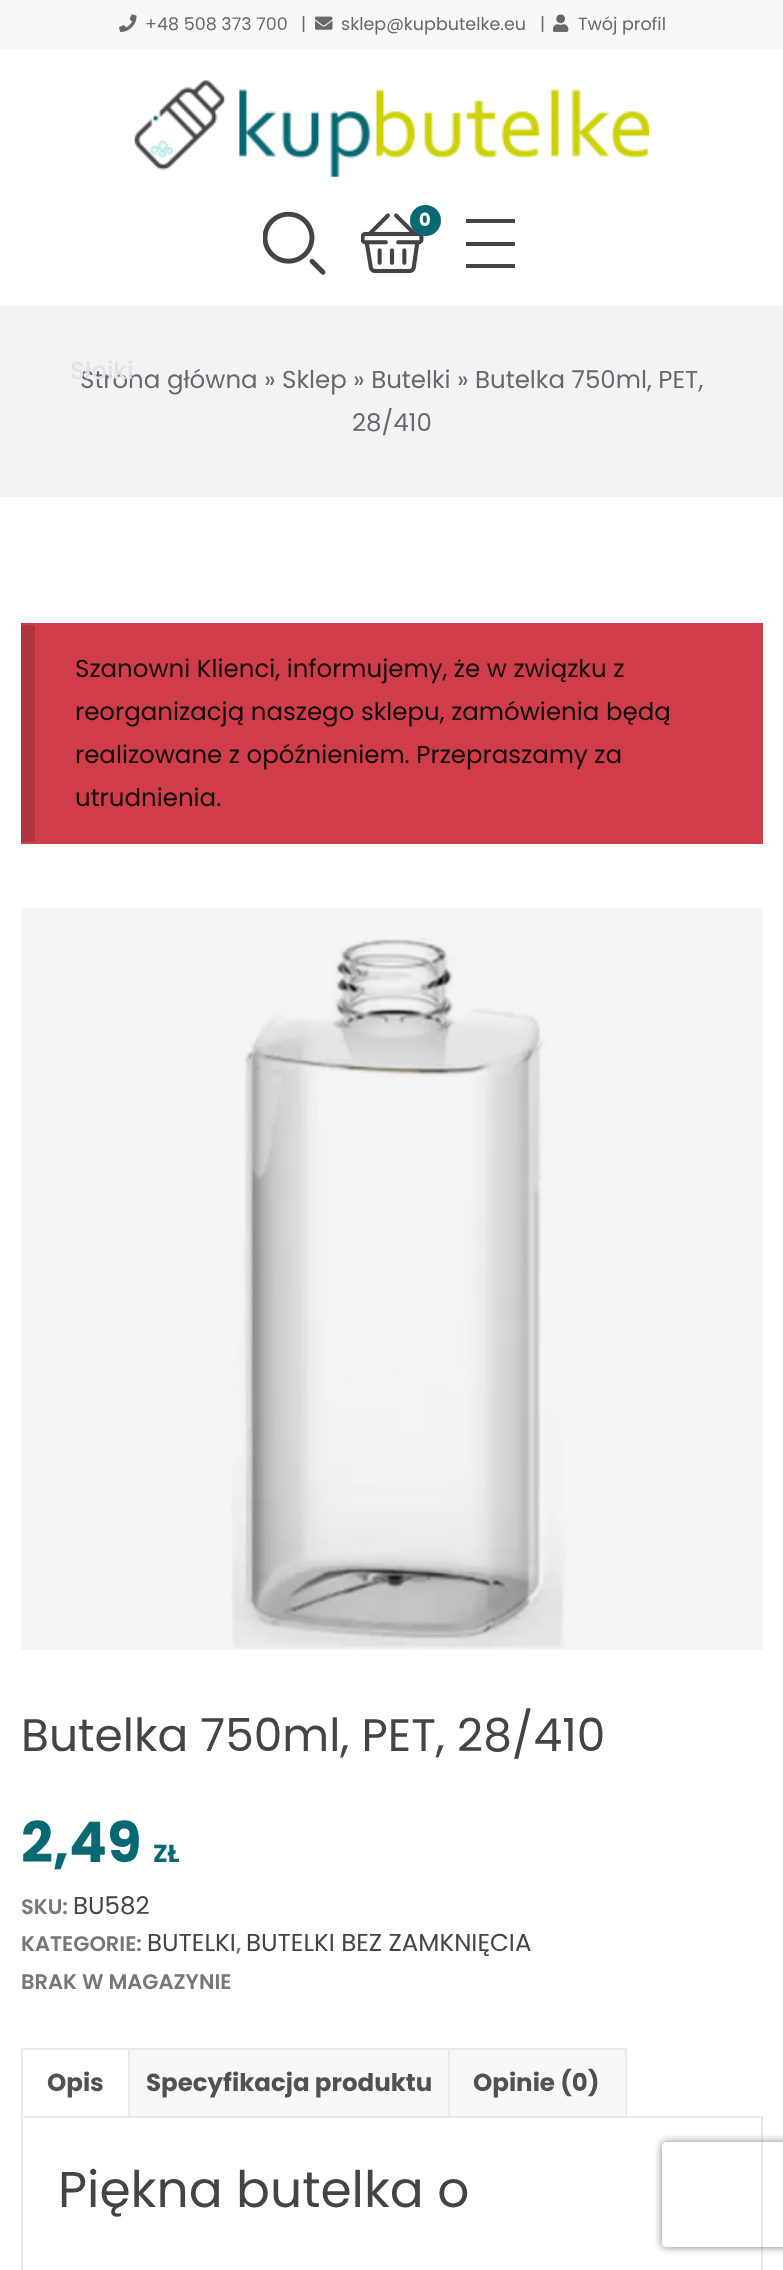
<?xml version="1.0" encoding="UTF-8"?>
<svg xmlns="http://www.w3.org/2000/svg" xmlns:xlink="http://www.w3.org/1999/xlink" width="783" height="2270">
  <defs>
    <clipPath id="clip1"><path d="M 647 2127 h 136 v 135 h -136 z m 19 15 h 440 c 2 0 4 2 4 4 v 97 c 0 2 -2 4 -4 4 h -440 c -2 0 -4 -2 -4 -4 v -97 c 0 -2 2 -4 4 -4 z" clip-rule="evenodd" /></clipPath>
  </defs>
  <rect width="100%" height="100%" fill="#ffffff" />
  <rect x="21" y="908" width="742" height="742" fill="#f5f5f5" />
  <rect width="783" height="49" fill="#f7f8f9" />
  <image x="119" y="14" width="18" height="18" xlink:href="image1.png" />
  <image x="315" y="16" width="18" height="14" xlink:href="image2.png" />
  <image x="553" y="14" width="16" height="18" xlink:href="image3.png" />
  <image x="134" y="80" width="516" height="97" xlink:href="image4.png" />
  <image x="263" y="212" width="63" height="63" xlink:href="image5.png" />
  <image x="361" y="213" width="63" height="61" xlink:href="image6.png" />
  <circle cx="425.5" cy="220.5" r="15.5" fill="#086972" />
  <rect x="466" y="219" width="49" height="4" fill="#444444" />
  <rect x="466" y="242" width="49" height="4" fill="#444444" />
  <rect x="466" y="264" width="49" height="4" fill="#444444" />
  <rect y="306" width="783" height="191" fill="#f1f3f5" />
  <rect x="21" y="623" width="742" height="221" fill="#d13c4b" />
  <rect x="21" y="625" width="14" height="217" fill="#b23340" />
  <image x="231" y="938" width="335" height="711" xlink:href="image7.png" />
  <rect x="130" y="2050" width="318" height="66" fill="#f7f8f9" />
  <rect x="120" y="2049" width="338" height="68" fill="none" stroke="#e9e9e9" stroke-width="2" />
  <rect x="119" y="2050" width="2" height="66" fill="#ffffff" />
  <rect x="22" y="2049" width="107" height="68" fill="none" stroke="#e9e9e9" stroke-width="2" />
  <rect x="449" y="2049" width="177" height="68" fill="#f7f8f9" stroke="#e9e9e9" stroke-width="2" />
  <rect x="627" y="2116" width="136" height="2" fill="#e9e9e9" />
  <rect x="761" y="2118" width="2" height="152" fill="#e9e9e9" />
  <rect x="21" y="2118" width="2" height="152" fill="#e9e9e9" />
  <g clip-path="url(#clip1)">
    <rect x="662" y="2142" width="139" height="105" rx="4" fill="#808080" filter="blur(4.5px)" />
  </g>
  <text x="145" y="30" style="font-family: Poppins; font-size: 17.5px; fill: #69696c">+48 508 373 700</text>
  <text x="301" y="30" style="font-family: Poppins; font-size: 17.5px; fill: #69696c">|</text>
  <text x="341" y="30" style="font-family: Poppins; font-size: 17.5px; fill: #69696c">sklep@kupbutelke.eu</text>
  <text x="540" y="30" style="font-family: Poppins; font-size: 17.5px; fill: #69696c">|</text>
  <text x="578" y="30" style="font-family: Poppins; font-size: 17.5px; fill: #69696c">Twój profil</text>
  <text x="419" y="226" style="font-family: Poppins; font-size: 18px; font-weight: bold; fill: #ffffff">0</text>
  <text x="80" y="388" style="font-family: Poppins; font-size: 24.5px; fill: #69696c">Strona główna » Sklep » Butelki » Butelka 750ml, PET,</text>
  <text x="70" y="379" style="font-family: Poppins; font-size: 24.5px; font-weight: 500; fill: #e0e2e4">Słoiki</text>
  <text x="352" y="431" style="font-family: Poppins; font-size: 24.5px; fill: #69696c">28/410</text>
  <text x="75" y="677" style="font-family: Poppins; font-size: 24.5px; fill: #100e0e">Szanowni Klienci, informujemy, że w związku z</text>
  <text x="75" y="720" style="font-family: Poppins; font-size: 24.5px; fill: #100e0e">reorganizacją naszego sklepu, zamówienia będą</text>
  <text x="75" y="763" style="font-family: Poppins; font-size: 24.5px; fill: #100e0e">realizowane z opóźnieniem. Przepraszamy za</text>
  <text x="75" y="806" style="font-family: Poppins; font-size: 24.5px; fill: #100e0e">utrudnienia.</text>
  <text x="21" y="1751" style="font-family: Poppins; font-size: 45.5px; fill: #444444">Butelka 750ml, PET, 28/410</text>
  <text x="21" y="1862" style="font-family: Poppins; font-size: 56px; font-weight: bold; fill: #086972">2,49</text>
  <text x="153" y="1862" style="font-family: Poppins; font-size: 24.5px; font-weight: bold; fill: #086972">ZŁ</text>
  <text x="21" y="1914" style="font-family: Poppins; font-size: 21px; font-weight: 600; fill: #777777">SKU:</text>
  <text x="73" y="1914" style="font-family: Poppins; font-size: 24.5px; fill: #444444">BU582</text>
  <text x="21" y="1951" style="font-family: Poppins; font-size: 21px; font-weight: 600; fill: #777777">KATEGORIE:</text>
  <text x="147" y="1951" style="font-family: Poppins; font-size: 24.5px; fill: #444444">BUTELKI</text>
  <text x="236" y="1951" style="font-family: Poppins; font-size: 21px; font-weight: 600; fill: #777777">,</text>
  <text x="246" y="1951" style="font-family: Poppins; font-size: 24.5px; fill: #444444">BUTELKI BEZ ZAMKNIĘCIA</text>
  <text x="21" y="1989" style="font-family: Poppins; font-size: 21px; font-weight: 600; fill: #777777">BRAK W MAGAZYNIE</text>
  <text x="47" y="2091" style="font-family: Poppins; font-size: 24.5px; font-weight: bold; fill: #515151">Opis</text>
  <text x="146" y="2091" style="font-family: Poppins; font-size: 24.5px; font-weight: bold; fill: #515151">Specyfikacja produktu</text>
  <text x="473" y="2091" style="font-family: Poppins; font-size: 24.5px; font-weight: bold; fill: #515151">Opinie (0)</text>
  <text x="58" y="2207" style="font-family: Poppins; font-size: 50.25px; fill: #444444">Piękna butelka o</text>
</svg>
